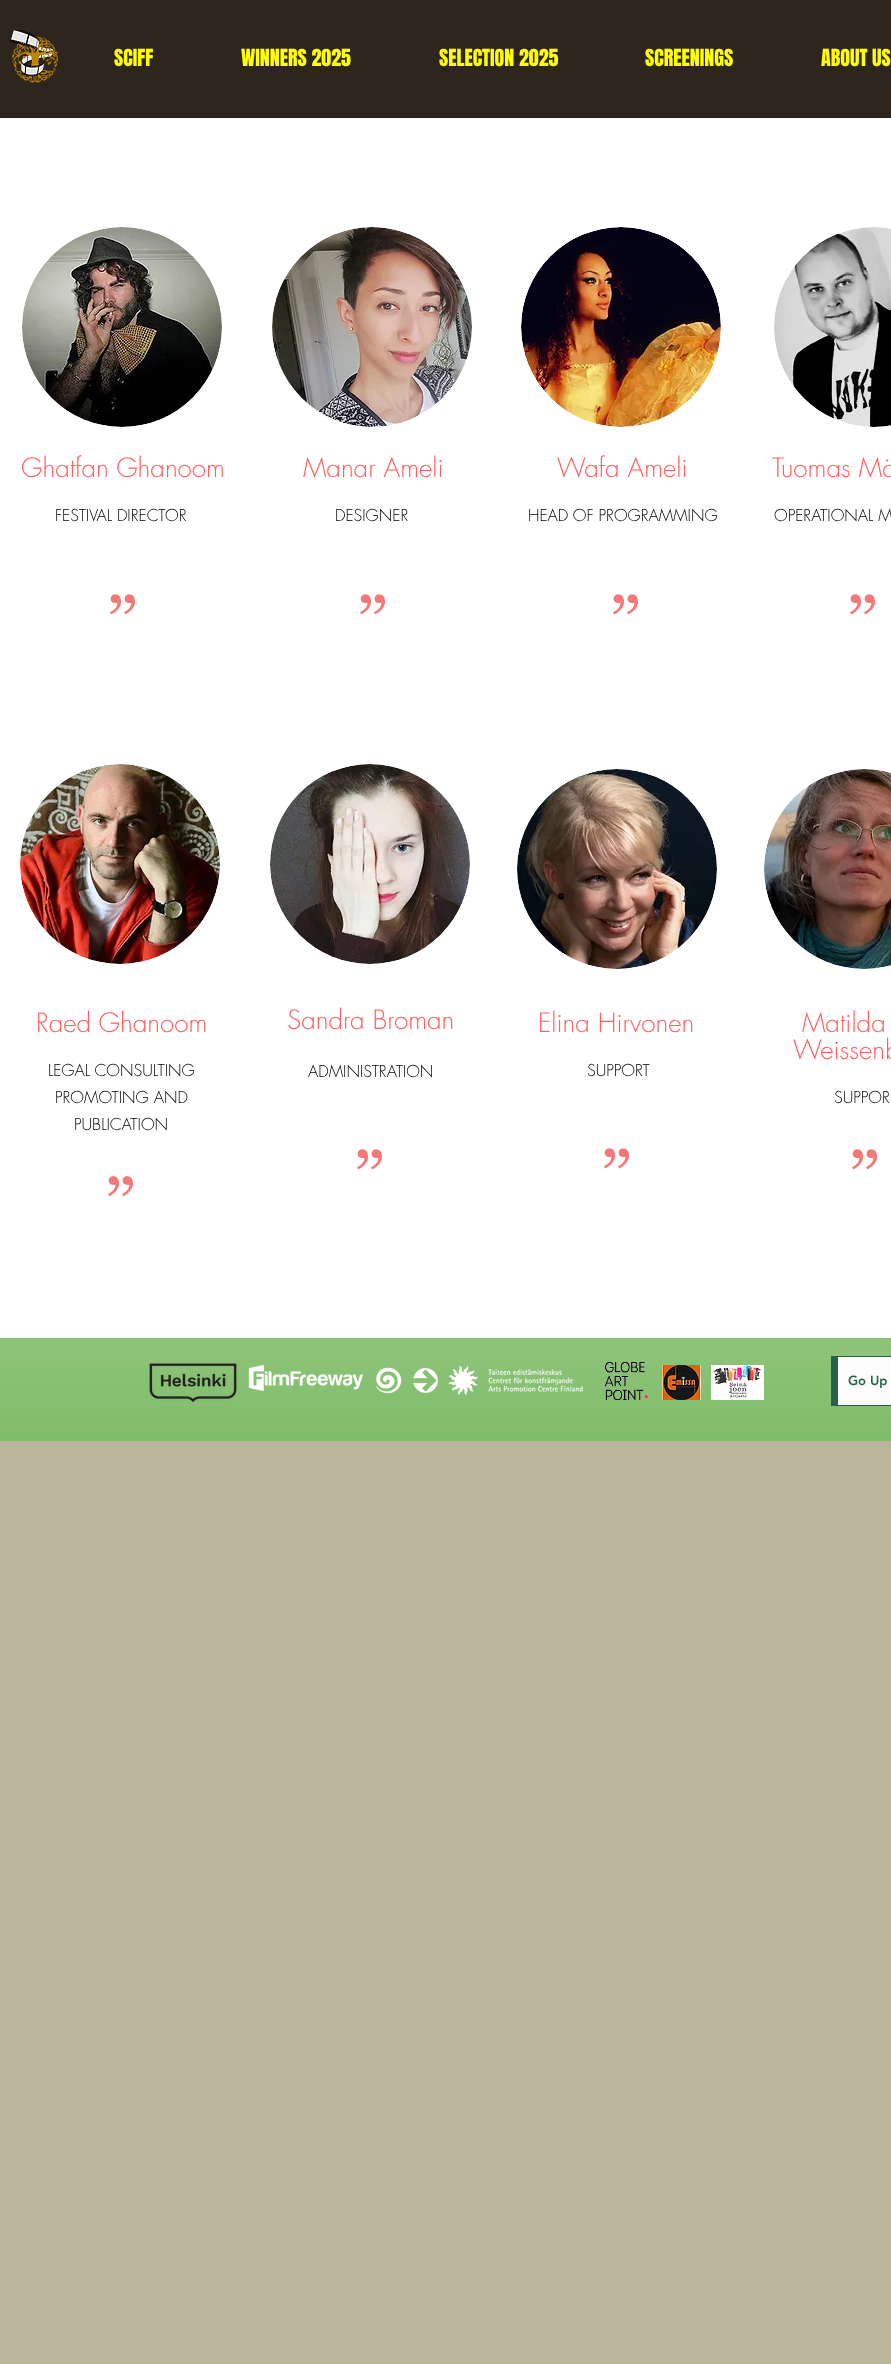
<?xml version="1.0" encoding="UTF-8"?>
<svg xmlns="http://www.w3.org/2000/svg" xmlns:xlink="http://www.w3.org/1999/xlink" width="891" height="2364">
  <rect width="100%" height="100%" fill="#bdb59b" />
  <rect width="891" height="118" fill="#2e251f" />
  <image x="9" y="30" width="49" height="53" xlink:href="image1.png" />
  <rect y="118" width="891" height="1220" fill="#ffffff" />
  <image x="22" y="227" width="200" height="200" xlink:href="image2.png" />
  <image x="110" y="594" width="25" height="21" xlink:href="image3.png" />
  <image x="272" y="227" width="200" height="200" xlink:href="image4.png" />
  <image x="360" y="594" width="25" height="21" xlink:href="image3.png" />
  <image x="521" y="227" width="200" height="200" xlink:href="image5.png" />
  <image x="613" y="594" width="25" height="21" xlink:href="image3.png" />
  <image x="774" y="227" width="117" height="200" xlink:href="image6.png" />
  <image x="850" y="594" width="25" height="21" xlink:href="image3.png" />
  <image x="20" y="764" width="200" height="200" xlink:href="image7.png" />
  <image x="108" y="1176" width="25" height="21" xlink:href="image8.png" />
  <image x="270" y="764" width="200" height="200" xlink:href="image9.png" />
  <image x="357" y="1149" width="25" height="21" xlink:href="image3.png" />
  <image x="517" y="769" width="200" height="200" xlink:href="image10.png" />
  <image x="604" y="1148" width="25" height="21" xlink:href="image3.png" />
  <image x="764" y="769" width="127" height="200" xlink:href="image11.png" />
  <image x="852" y="1149" width="25" height="21" xlink:href="image3.png" />
  <rect y="1338" width="891" height="103" fill="#68b04d" />
  <image x="0" y="1338" width="891" height="103" xlink:href="image12.png" />
  <image x="149" y="1363" width="88" height="39" xlink:href="image13.png" />
  <image x="248" y="1364" width="116" height="28" xlink:href="image14.png" />
  <image x="376" y="1366" width="207" height="29" xlink:href="image15.png" />
  <image x="604" y="1362" width="45" height="38" xlink:href="image16.png" />
  <image x="662" y="1365" width="39" height="35" xlink:href="image17.png" />
  <image x="711" y="1365" width="53" height="35" xlink:href="image18.png" />
  <rect x="831" y="1356" width="6" height="50" fill="#266445" />
  <rect x="837.5" y="1356.5" width="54" height="49" fill="#fcfcfc" stroke="#266445" />
  <text x="114" y="66" style="font-family: Anton; font-size: 20px; fill: #feff00">SCIFF</text>
  <text x="241" y="66" style="font-family: Anton; font-size: 20px; fill: #feff00">WINNERS 2025</text>
  <text x="439" y="66" style="font-family: Anton; font-size: 20px; fill: #feff00">SELECTION 2025</text>
  <text x="645" y="66" style="font-family: Anton; font-size: 20px; fill: #feff00">SCREENINGS</text>
  <text x="821" y="66" style="font-family: Anton; font-size: 20px; fill: #feff00">ABOUT US</text>
  <text x="21" y="477" style="font-family: futura; font-size: 26px; font-weight: 300; fill: #ff6161">Ghatfan Ghanoom</text>
  <text x="55" y="521" style="font-family: futura; font-size: 16px; font-weight: 300; fill: #000000">FESTIVAL DIRECTOR</text>
  <text x="303" y="477" style="font-family: futura; font-size: 26px; font-weight: 300; fill: #ff6161">Manar Ameli</text>
  <text x="335" y="521" style="font-family: futura; font-size: 16px; font-weight: 300; fill: #000000">DESIGNER</text>
  <text x="557" y="477" style="font-family: futura; font-size: 26px; font-weight: 300; fill: #ff6161">Wafa Ameli</text>
  <text x="528" y="521" style="font-family: futura; font-size: 16px; font-weight: 300; fill: #000000">HEAD OF PROGRAMMING</text>
  <text x="772" y="477" style="font-family: futura; font-size: 26px; font-weight: 300; fill: #ff6161">Tuomas Mä</text>
  <text x="774" y="521" style="font-family: futura; font-size: 16px; font-weight: 300; fill: #000000">OPERATIONAL M</text>
  <text x="36" y="1032" style="font-family: futura; font-size: 26px; font-weight: 300; fill: #ff6161">Raed Ghanoom</text>
  <text x="48" y="1076" style="font-family: futura; font-size: 16px; font-weight: 300; fill: #000000">LEGAL CONSULTING</text>
  <text x="55" y="1103" style="font-family: futura; font-size: 16px; font-weight: 300; fill: #000000">PROMOTING AND</text>
  <text x="74" y="1130" style="font-family: futura; font-size: 16px; font-weight: 300; fill: #000000">PUBLICATION</text>
  <text x="287" y="1029" style="font-family: futura; font-size: 26px; font-weight: 300; fill: #ff6161">Sandra Broman</text>
  <text x="308" y="1077" style="font-family: futura; font-size: 16px; font-weight: 300; fill: #000000">ADMINISTRATION</text>
  <text x="538" y="1032" style="font-family: futura; font-size: 26px; font-weight: 300; fill: #ff6161">Elina Hirvonen</text>
  <text x="587" y="1076" style="font-family: futura; font-size: 16px; font-weight: 300; fill: #000000">SUPPORT</text>
  <text x="802" y="1032" style="font-family: futura; font-size: 26px; font-weight: 300; fill: #ff6161">Matilda</text>
  <text x="793" y="1059" style="font-family: futura; font-size: 26px; font-weight: 300; fill: #ff6161">Weissenb</text>
  <text x="834" y="1103" style="font-family: futura; font-size: 16px; font-weight: 300; fill: #000000">SUPPOR</text>
  <text x="848" y="1385" style="font-family: 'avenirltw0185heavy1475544'; font-size: 13px; font-weight: 900; fill: #266445">Go Up</text>
</svg>
